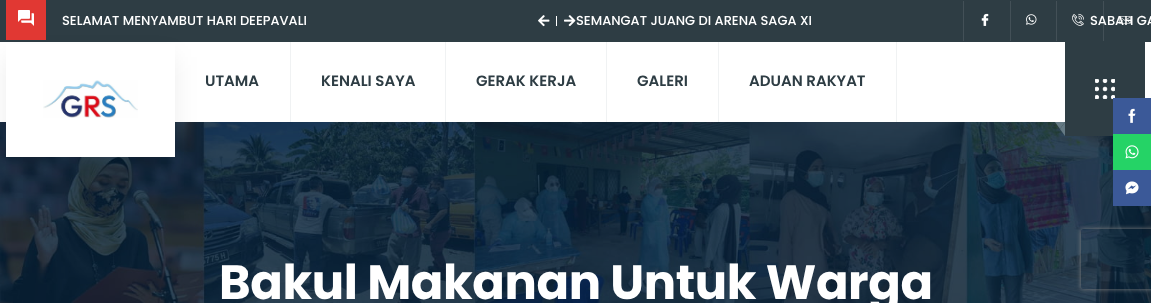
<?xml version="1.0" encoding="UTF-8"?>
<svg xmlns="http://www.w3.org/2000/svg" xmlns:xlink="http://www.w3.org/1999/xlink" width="1151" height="303">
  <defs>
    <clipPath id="clip1"><path d="M 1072 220 h 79 v 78 h -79 z m 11 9 h 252 c 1 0 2 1 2 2 v 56 c 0 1 -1 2 -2 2 h -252 c -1 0 -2 -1 -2 -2 v -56 c 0 -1 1 -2 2 -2 z" clip-rule="evenodd" /></clipPath>
  </defs>
  <rect width="100%" height="100%" fill="#ffffff" />
  <rect width="1151" height="42" fill="#2e3d44" />
  <rect x="963" y="1" width="1" height="40" fill="#435057" />
  <image x="981" y="13" width="8" height="13" xlink:href="image1.png" />
  <rect x="1010" y="1" width="1" height="40" fill="#435057" />
  <image x="1026" y="14" width="11" height="11" xlink:href="image2.png" />
  <rect x="1056" y="1" width="1" height="40" fill="#435057" />
  <image x="1072" y="13" width="12" height="13" xlink:href="image3.png" />
  <rect x="1103" y="1" width="1" height="40" fill="#435057" />
  <image x="1119" y="16" width="12" height="8" xlink:href="image4.png" />
  <image x="0" y="122" width="1151" height="181" xlink:href="image13.png" />
  <rect x="6" y="57" width="169" height="115" fill="#000000" fill-opacity="0.07" filter="blur(12.5px)" />
  <rect x="6" width="40" height="40" fill="#e13833" />
  <image x="18" y="10" width="16" height="16" xlink:href="image5.png" />
  <image x="538" y="15" width="12" height="12" xlink:href="image6.png" />
  <rect x="556" y="16" width="1" height="10" fill="#ffffff" />
  <image x="564" y="15" width="12" height="12" xlink:href="image7.png" />
  <rect x="6" y="44" width="169" height="113" fill="#ffffff" />
  <image x="43" y="80" width="95" height="38" xlink:href="image8.png" />
  <rect x="290" y="42" width="1" height="80" fill="#f0f2f3" />
  <rect x="445" y="42" width="1" height="80" fill="#f0f2f3" />
  <rect x="606" y="42" width="1" height="80" fill="#f0f2f3" />
  <rect x="718" y="42" width="1" height="80" fill="#f0f2f3" />
  <rect x="896" y="42" width="1" height="80" fill="#f0f2f3" />
  <rect x="1065" y="42" width="80" height="94" fill="#2e3d44" />
  <image x="1095" y="79" width="20" height="20" xlink:href="image9.png" />
  <path d="M 1055 122 h 10 l -5 7 z" fill="#657a84" />
  <path d="M 1065 122 v 14 l -5 -7 z" fill="#657a84" />
  <rect x="1113" y="98" width="38" height="36" fill="#3b5998" />
  <image x="1128" y="108" width="8" height="15" xlink:href="image10.png" />
  <rect x="1113" y="134" width="38" height="36" fill="#25d366" />
  <image x="1125" y="145" width="14" height="14" xlink:href="image11.png" />
  <rect x="1113" y="170" width="38" height="36" fill="#3b5998" />
  <image x="1125" y="181" width="14" height="14" xlink:href="image12.png" />
  <g clip-path="url(#clip1)">
    <rect x="1081" y="229" width="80" height="60" rx="2" fill="#808080" filter="blur(2.5px)" />
  </g>
  <text x="62" y="25" style="font-family: Poppins; font-size: 13px; font-weight: 500; fill: #ffffff">SELAMAT MENYAMBUT HARI DEEPAVALI</text>
  <text x="576" y="25" style="font-family: Poppins; font-size: 13px; font-weight: 500; fill: #ffffff">SEMANGAT JUANG DI ARENA SAGA XI</text>
  <text x="1090" y="25" style="font-family: Poppins; font-size: 13px; font-weight: 500; fill: #ffffff">SABAH GA</text>
  <text x="205" y="86" style="font-family: Poppins; font-size: 15px; font-weight: 600; fill: #2e3d44">UTAMA</text>
  <text x="321" y="86" style="font-family: Poppins; font-size: 15px; font-weight: 600; fill: #2e3d44">KENALI SAYA</text>
  <text x="476" y="86" style="font-family: Poppins; font-size: 15px; font-weight: 600; fill: #2e3d44">GERAK KERJA</text>
  <text x="637" y="86" style="font-family: Poppins; font-size: 15px; font-weight: 600; fill: #2e3d44">GALERI</text>
  <text x="749" y="86" style="font-family: Poppins; font-size: 15px; font-weight: 600; fill: #2e3d44">ADUAN RAKYAT</text>
  <text x="219" y="299" style="font-family: Poppins; font-size: 48px; font-weight: bold; letter-spacing: -0.4px; fill: #ffffff">Bakul Makanan Untuk Warga</text>
</svg>
